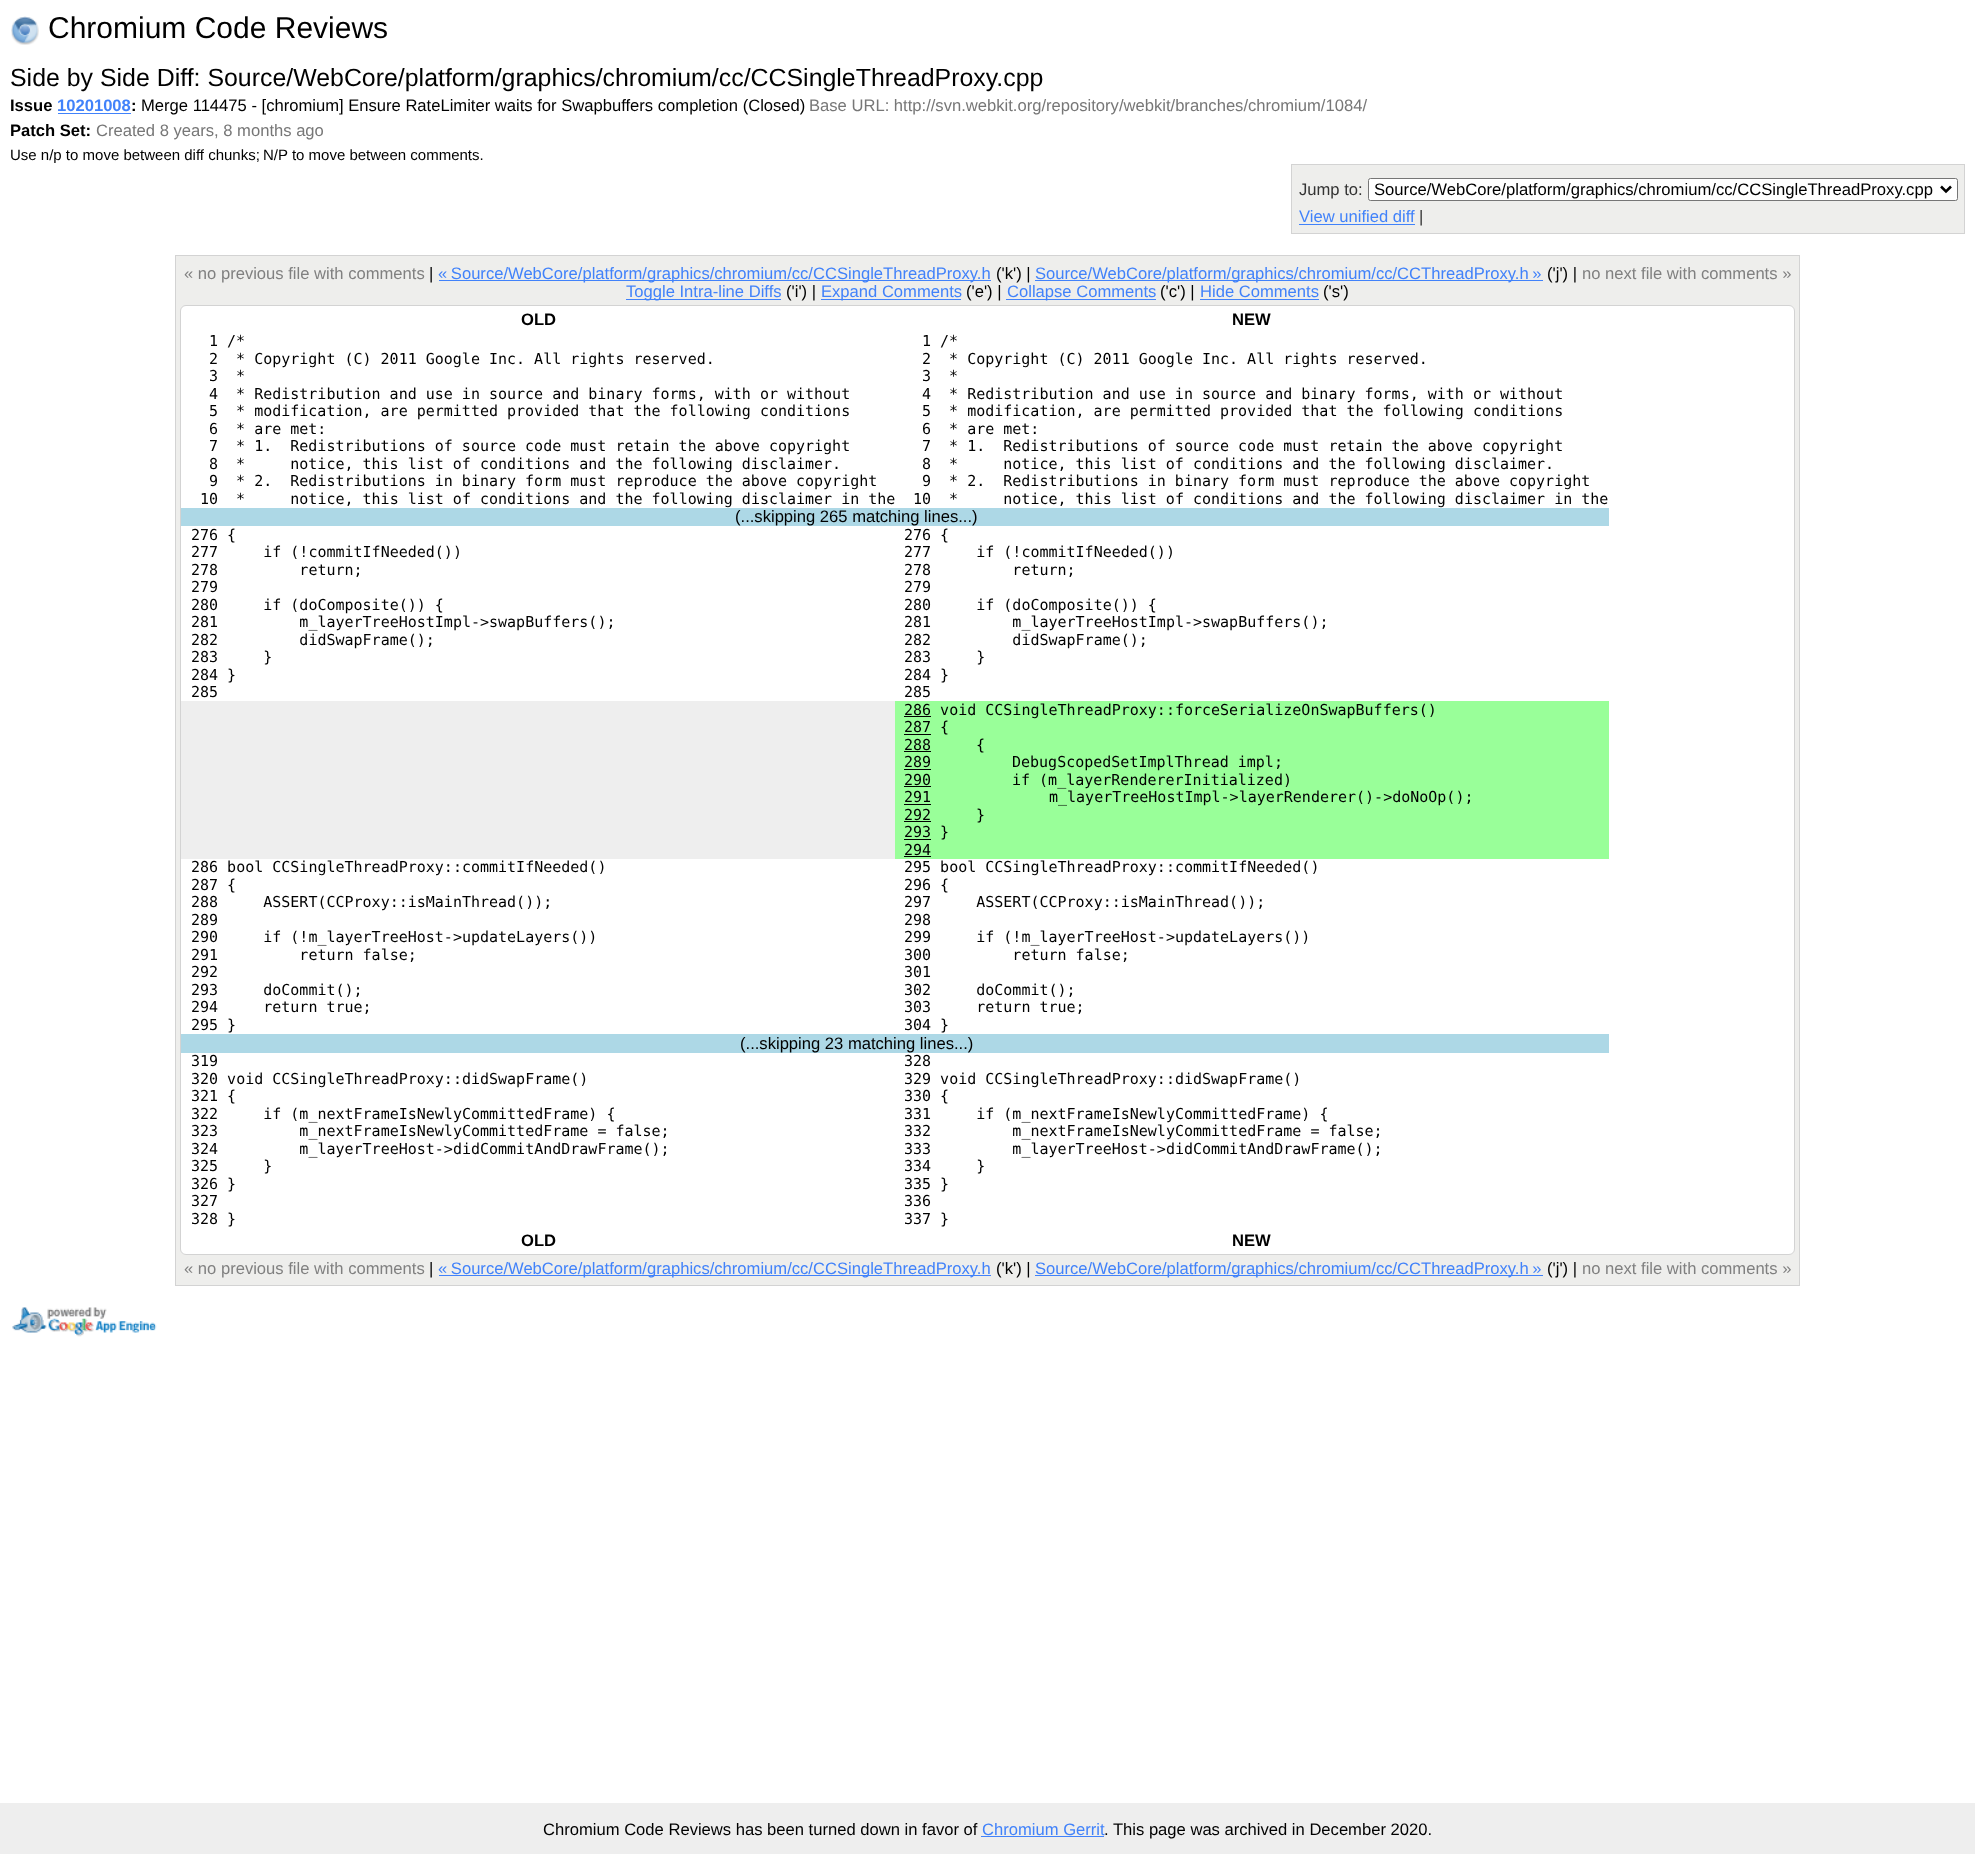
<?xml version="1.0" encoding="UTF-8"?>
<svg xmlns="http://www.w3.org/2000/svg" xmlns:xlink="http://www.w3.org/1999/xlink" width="1975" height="1854">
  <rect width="100%" height="100%" fill="#ffffff" />
  <image x="11" y="16" width="28" height="29" xlink:href="image1.png" />
  <rect x="58" y="113" width="73" height="1" fill="#4182fa" />
  <rect x="1291.5" y="164.5" width="673" height="69" fill="#eeeeec" stroke="#d3d3d3" />
  <rect x="1368.5" y="178.5" width="589" height="22" rx="2" fill="#ffffff" stroke="#767676" />
  <path d="M 1941 186.5 l 5 5 l 5 -5" fill="none" stroke="#000000" stroke-width="2.5" />
  <rect x="1299" y="224" width="116" height="1" fill="#4182fa" />
  <rect x="175.5" y="255.5" width="1624" height="1030" fill="#eeeeec" stroke="#d3d3d3" />
  <rect x="439" y="280" width="552" height="1" fill="#4182fa" />
  <rect x="1035" y="280" width="508" height="1" fill="#4182fa" />
  <rect x="626" y="299" width="155" height="1" fill="#4182fa" />
  <rect x="821" y="299" width="140" height="1" fill="#4182fa" />
  <rect x="1006" y="299" width="150" height="1" fill="#4182fa" />
  <rect x="1200" y="299" width="119" height="1" fill="#4182fa" />
  <rect x="180.5" y="305.5" width="1614" height="949" rx="5.5" fill="#ffffff" stroke="#d3d3d3" />
  <rect x="181" y="508" width="1428" height="18" fill="#add8e6" />
  <rect x="181" y="701" width="714" height="158" fill="#eeeeee" />
  <rect x="895" y="701" width="714" height="158" fill="#99ff99" />
  <rect x="904" y="716" width="27" height="1" fill="#000000" />
  <rect x="904" y="734" width="27" height="1" fill="#000000" />
  <rect x="904" y="751" width="27" height="1" fill="#000000" />
  <rect x="904" y="769" width="27" height="1" fill="#000000" />
  <rect x="904" y="786" width="27" height="1" fill="#000000" />
  <rect x="904" y="804" width="27" height="1" fill="#000000" />
  <rect x="904" y="821" width="27" height="1" fill="#000000" />
  <rect x="904" y="839" width="27" height="1" fill="#000000" />
  <rect x="904" y="856" width="27" height="1" fill="#000000" />
  <rect x="181" y="1034" width="1428" height="19" fill="#add8e6" />
  <rect x="439" y="1275" width="552" height="1" fill="#4182fa" />
  <rect x="1035" y="1275" width="508" height="1" fill="#4182fa" />
  <image x="12" y="1307" width="145" height="30" xlink:href="image2.png" />
  <rect y="1803" width="1975" height="51" fill="#eeeeee" />
  <rect x="981" y="1836" width="123" height="1" fill="#4182fa" />
  <text x="48" y="38" style="font-family: Liberation Sans; font-size: 30px; fill: #000000">Chromium Code Reviews</text>
  <text x="10" y="86" style="font-family: Liberation Sans; font-size: 24.9px; fill: #000000">Side by Side Diff: Source/WebCore/platform/graphics/chromium/cc/CCSingleThreadProxy.cpp</text>
  <text x="10" y="111" style="font-family: Liberation Sans; font-size: 16.6px; font-weight: bold; fill: #000000">Issue</text>
  <text x="57" y="111" style="font-family: Liberation Sans; font-size: 16.6px; font-weight: bold; fill: #4182fa">10201008</text>
  <text x="131" y="111" style="font-family: Liberation Sans; font-size: 16.6px; font-weight: bold; fill: #000000">:</text>
  <text x="141" y="111" style="font-family: Liberation Sans; font-size: 16.6px; fill: #000000">Merge 114475 - [chromium] Ensure RateLimiter waits for Swapbuffers completion (Closed)</text>
  <text x="809" y="111" style="font-family: Liberation Sans; font-size: 16.6px; fill: #777777">Base URL: http://svn.webkit.org/repository/webkit/branches/chromium/1084/</text>
  <text x="10" y="136" style="font-family: Liberation Sans; font-size: 16.6px; font-weight: bold; fill: #000000">Patch Set:</text>
  <text x="96" y="136" style="font-family: Liberation Sans; font-size: 16.6px; fill: #777777">Created 8 years, 8 months ago</text>
  <text x="10" y="160" style="font-family: Liberation Sans; font-size: 15px; fill: #000000">Use n/p to move between diff chunks;</text>
  <text x="263" y="160" style="font-family: Liberation Sans; font-size: 15px; fill: #000000">N/P to move between comments.</text>
  <text x="1299" y="195" style="font-family: Liberation Sans; font-size: 16.6px; fill: #333333">Jump to:</text>
  <text x="1374" y="195" style="font-family: Liberation Sans; font-size: 16.65px; fill: #000000">Source/WebCore/platform/graphics/chromium/cc/CCSingleThreadProxy.cpp</text>
  <text x="1299" y="222" style="font-family: Liberation Sans; font-size: 16.6px; fill: #4182fa">View unified diff</text>
  <text x="1419" y="222" style="font-family: Liberation Sans; font-size: 16.6px; fill: #333333">|</text>
  <text x="184" y="279" style="font-family: Liberation Sans; font-size: 16.6px; fill: #808080">« no previous file with comments</text>
  <text x="429" y="279" style="font-family: Liberation Sans; font-size: 16.6px; fill: #000000">|</text>
  <text x="438" y="279" word-spacing="-1" style="font-family: Liberation Sans; font-size: 16.6px; fill: #4182fa">« Source/WebCore/platform/graphics/chromium/cc/CCSingleThreadProxy.h</text>
  <text x="996" y="279" style="font-family: Liberation Sans; font-size: 16.6px; fill: #000000">('k') |</text>
  <text x="1035" y="279" word-spacing="-1" style="font-family: Liberation Sans; font-size: 16.6px; fill: #4182fa">Source/WebCore/platform/graphics/chromium/cc/CCThreadProxy.h »</text>
  <text x="1547" y="279" style="font-family: Liberation Sans; font-size: 16.6px; fill: #000000">('j') |</text>
  <text x="1582" y="279" style="font-family: Liberation Sans; font-size: 16.6px; fill: #808080">no next file with comments »</text>
  <text x="626" y="297" style="font-family: Liberation Sans; font-size: 16.6px; fill: #4182fa">Toggle Intra-line Diffs</text>
  <text x="786" y="297" style="font-family: Liberation Sans; font-size: 16.6px; fill: #000000">('i') |</text>
  <text x="821" y="297" style="font-family: Liberation Sans; font-size: 16.6px; fill: #4182fa">Expand Comments</text>
  <text x="966" y="297" style="font-family: Liberation Sans; font-size: 16.6px; fill: #000000">('e') |</text>
  <text x="1007" y="297" style="font-family: Liberation Sans; font-size: 16.6px; fill: #4182fa">Collapse Comments</text>
  <text x="1160" y="297" style="font-family: Liberation Sans; font-size: 16.6px; fill: #000000">('c') |</text>
  <text x="1200" y="297" style="font-family: Liberation Sans; font-size: 16.6px; fill: #4182fa">Hide Comments</text>
  <text x="1323" y="297" style="font-family: Liberation Sans; font-size: 16.6px; fill: #000000">('s')</text>
  <text x="521" y="325" style="font-family: Liberation Sans; font-size: 16.6px; font-weight: bold; fill: #000000">OLD</text>
  <text x="1232" y="325" style="font-family: Liberation Sans; font-size: 16.6px; font-weight: bold; fill: #000000">NEW</text>
  <text x="209" y="346" style="font-family: DejaVu Sans Mono; font-size: 15px; fill: #000000">1 /*</text>
  <text x="922" y="346" style="font-family: DejaVu Sans Mono; font-size: 15px; fill: #000000">1 /*</text>
  <text x="209" y="364" style="font-family: DejaVu Sans Mono; font-size: 15px; fill: #000000" xml:space="preserve">2  * Copyright (C) 2011 Google Inc. All rights reserved.</text>
  <text x="922" y="364" style="font-family: DejaVu Sans Mono; font-size: 15px; fill: #000000" xml:space="preserve">2  * Copyright (C) 2011 Google Inc. All rights reserved.</text>
  <text x="209" y="381" style="font-family: DejaVu Sans Mono; font-size: 15px; fill: #000000" xml:space="preserve">3  *</text>
  <text x="922" y="381" style="font-family: DejaVu Sans Mono; font-size: 15px; fill: #000000" xml:space="preserve">3  *</text>
  <text x="209" y="399" style="font-family: DejaVu Sans Mono; font-size: 15px; fill: #000000" xml:space="preserve">4  * Redistribution and use in source and binary forms, with or without</text>
  <text x="922" y="399" style="font-family: DejaVu Sans Mono; font-size: 15px; fill: #000000" xml:space="preserve">4  * Redistribution and use in source and binary forms, with or without</text>
  <text x="209" y="416" style="font-family: DejaVu Sans Mono; font-size: 15px; fill: #000000" xml:space="preserve">5  * modification, are permitted provided that the following conditions</text>
  <text x="922" y="416" style="font-family: DejaVu Sans Mono; font-size: 15px; fill: #000000" xml:space="preserve">5  * modification, are permitted provided that the following conditions</text>
  <text x="209" y="434" style="font-family: DejaVu Sans Mono; font-size: 15px; fill: #000000" xml:space="preserve">6  * are met:</text>
  <text x="922" y="434" style="font-family: DejaVu Sans Mono; font-size: 15px; fill: #000000" xml:space="preserve">6  * are met:</text>
  <text x="209" y="451" style="font-family: DejaVu Sans Mono; font-size: 15px; fill: #000000" xml:space="preserve">7  * 1.  Redistributions of source code must retain the above copyright</text>
  <text x="922" y="451" style="font-family: DejaVu Sans Mono; font-size: 15px; fill: #000000" xml:space="preserve">7  * 1.  Redistributions of source code must retain the above copyright</text>
  <text x="209" y="469" style="font-family: DejaVu Sans Mono; font-size: 15px; fill: #000000" xml:space="preserve">8  *     notice, this list of conditions and the following disclaimer.</text>
  <text x="922" y="469" style="font-family: DejaVu Sans Mono; font-size: 15px; fill: #000000" xml:space="preserve">8  *     notice, this list of conditions and the following disclaimer.</text>
  <text x="209" y="486" style="font-family: DejaVu Sans Mono; font-size: 15px; fill: #000000" xml:space="preserve">9  * 2.  Redistributions in binary form must reproduce the above copyright</text>
  <text x="922" y="486" style="font-family: DejaVu Sans Mono; font-size: 15px; fill: #000000" xml:space="preserve">9  * 2.  Redistributions in binary form must reproduce the above copyright</text>
  <text x="200" y="504" style="font-family: DejaVu Sans Mono; font-size: 15px; fill: #000000" xml:space="preserve">10  *     notice, this list of conditions and the following disclaimer in the</text>
  <text x="913" y="504" style="font-family: DejaVu Sans Mono; font-size: 15px; fill: #000000" xml:space="preserve">10  *     notice, this list of conditions and the following disclaimer in the</text>
  <text x="735" y="522" style="font-family: Liberation Sans; font-size: 16.6px; fill: #000000">(...skipping 265 matching lines...)</text>
  <text x="191" y="540" style="font-family: DejaVu Sans Mono; font-size: 15px; fill: #000000">276 {</text>
  <text x="904" y="540" style="font-family: DejaVu Sans Mono; font-size: 15px; fill: #000000">276 {</text>
  <text x="191" y="557" style="font-family: DejaVu Sans Mono; font-size: 15px; fill: #000000" xml:space="preserve">277     if (!commitIfNeeded())</text>
  <text x="904" y="557" style="font-family: DejaVu Sans Mono; font-size: 15px; fill: #000000" xml:space="preserve">277     if (!commitIfNeeded())</text>
  <text x="191" y="575" style="font-family: DejaVu Sans Mono; font-size: 15px; fill: #000000" xml:space="preserve">278         return;</text>
  <text x="904" y="575" style="font-family: DejaVu Sans Mono; font-size: 15px; fill: #000000" xml:space="preserve">278         return;</text>
  <text x="191" y="592" style="font-family: DejaVu Sans Mono; font-size: 15px; fill: #000000">279</text>
  <text x="904" y="592" style="font-family: DejaVu Sans Mono; font-size: 15px; fill: #000000">279</text>
  <text x="191" y="610" style="font-family: DejaVu Sans Mono; font-size: 15px; fill: #000000" xml:space="preserve">280     if (doComposite()) {</text>
  <text x="904" y="610" style="font-family: DejaVu Sans Mono; font-size: 15px; fill: #000000" xml:space="preserve">280     if (doComposite()) {</text>
  <text x="191" y="627" style="font-family: DejaVu Sans Mono; font-size: 15px; fill: #000000" xml:space="preserve">281         m_layerTreeHostImpl-&gt;swapBuffers();</text>
  <text x="904" y="627" style="font-family: DejaVu Sans Mono; font-size: 15px; fill: #000000" xml:space="preserve">281         m_layerTreeHostImpl-&gt;swapBuffers();</text>
  <text x="191" y="645" style="font-family: DejaVu Sans Mono; font-size: 15px; fill: #000000" xml:space="preserve">282         didSwapFrame();</text>
  <text x="904" y="645" style="font-family: DejaVu Sans Mono; font-size: 15px; fill: #000000" xml:space="preserve">282         didSwapFrame();</text>
  <text x="191" y="662" style="font-family: DejaVu Sans Mono; font-size: 15px; fill: #000000" xml:space="preserve">283     }</text>
  <text x="904" y="662" style="font-family: DejaVu Sans Mono; font-size: 15px; fill: #000000" xml:space="preserve">283     }</text>
  <text x="191" y="680" style="font-family: DejaVu Sans Mono; font-size: 15px; fill: #000000">284 }</text>
  <text x="904" y="680" style="font-family: DejaVu Sans Mono; font-size: 15px; fill: #000000">284 }</text>
  <text x="191" y="697" style="font-family: DejaVu Sans Mono; font-size: 15px; fill: #000000">285</text>
  <text x="904" y="697" style="font-family: DejaVu Sans Mono; font-size: 15px; fill: #000000">285</text>
  <text x="904" y="715" style="font-family: DejaVu Sans Mono; font-size: 15px; fill: #000000">286 void CCSingleThreadProxy::forceSerializeOnSwapBuffers()</text>
  <text x="904" y="732" style="font-family: DejaVu Sans Mono; font-size: 15px; fill: #000000">287 {</text>
  <text x="904" y="750" style="font-family: DejaVu Sans Mono; font-size: 15px; fill: #000000">288</text>
  <text x="976" y="750" style="font-family: DejaVu Sans Mono; font-size: 15px; fill: #000000">{</text>
  <text x="904" y="767" style="font-family: DejaVu Sans Mono; font-size: 15px; fill: #000000">289</text>
  <text x="1012" y="767" style="font-family: DejaVu Sans Mono; font-size: 15px; fill: #000000">DebugScopedSetImplThread impl;</text>
  <text x="904" y="785" style="font-family: DejaVu Sans Mono; font-size: 15px; fill: #000000">290</text>
  <text x="1012" y="785" style="font-family: DejaVu Sans Mono; font-size: 15px; fill: #000000">if (m_layerRendererInitialized)</text>
  <text x="904" y="802" style="font-family: DejaVu Sans Mono; font-size: 15px; fill: #000000">291</text>
  <text x="1049" y="802" style="font-family: DejaVu Sans Mono; font-size: 15px; fill: #000000">m_layerTreeHostImpl-&gt;layerRenderer()-&gt;doNoOp();</text>
  <text x="904" y="820" style="font-family: DejaVu Sans Mono; font-size: 15px; fill: #000000">292</text>
  <text x="976" y="820" style="font-family: DejaVu Sans Mono; font-size: 15px; fill: #000000">}</text>
  <text x="904" y="837" style="font-family: DejaVu Sans Mono; font-size: 15px; fill: #000000">293 }</text>
  <text x="904" y="855" style="font-family: DejaVu Sans Mono; font-size: 15px; fill: #000000">294</text>
  <text x="191" y="872" style="font-family: DejaVu Sans Mono; font-size: 15px; fill: #000000">286 bool CCSingleThreadProxy::commitIfNeeded()</text>
  <text x="904" y="872" style="font-family: DejaVu Sans Mono; font-size: 15px; fill: #000000">295 bool CCSingleThreadProxy::commitIfNeeded()</text>
  <text x="191" y="890" style="font-family: DejaVu Sans Mono; font-size: 15px; fill: #000000">287 {</text>
  <text x="904" y="890" style="font-family: DejaVu Sans Mono; font-size: 15px; fill: #000000">296 {</text>
  <text x="191" y="907" style="font-family: DejaVu Sans Mono; font-size: 15px; fill: #000000" xml:space="preserve">288     ASSERT(CCProxy::isMainThread());</text>
  <text x="904" y="907" style="font-family: DejaVu Sans Mono; font-size: 15px; fill: #000000" xml:space="preserve">297     ASSERT(CCProxy::isMainThread());</text>
  <text x="191" y="925" style="font-family: DejaVu Sans Mono; font-size: 15px; fill: #000000">289</text>
  <text x="904" y="925" style="font-family: DejaVu Sans Mono; font-size: 15px; fill: #000000">298</text>
  <text x="191" y="942" style="font-family: DejaVu Sans Mono; font-size: 15px; fill: #000000" xml:space="preserve">290     if (!m_layerTreeHost-&gt;updateLayers())</text>
  <text x="904" y="942" style="font-family: DejaVu Sans Mono; font-size: 15px; fill: #000000" xml:space="preserve">299     if (!m_layerTreeHost-&gt;updateLayers())</text>
  <text x="191" y="960" style="font-family: DejaVu Sans Mono; font-size: 15px; fill: #000000" xml:space="preserve">291         return false;</text>
  <text x="904" y="960" style="font-family: DejaVu Sans Mono; font-size: 15px; fill: #000000" xml:space="preserve">300         return false;</text>
  <text x="191" y="977" style="font-family: DejaVu Sans Mono; font-size: 15px; fill: #000000">292</text>
  <text x="904" y="977" style="font-family: DejaVu Sans Mono; font-size: 15px; fill: #000000">301</text>
  <text x="191" y="995" style="font-family: DejaVu Sans Mono; font-size: 15px; fill: #000000" xml:space="preserve">293     doCommit();</text>
  <text x="904" y="995" style="font-family: DejaVu Sans Mono; font-size: 15px; fill: #000000" xml:space="preserve">302     doCommit();</text>
  <text x="191" y="1012" style="font-family: DejaVu Sans Mono; font-size: 15px; fill: #000000" xml:space="preserve">294     return true;</text>
  <text x="904" y="1012" style="font-family: DejaVu Sans Mono; font-size: 15px; fill: #000000" xml:space="preserve">303     return true;</text>
  <text x="191" y="1030" style="font-family: DejaVu Sans Mono; font-size: 15px; fill: #000000">295 }</text>
  <text x="904" y="1030" style="font-family: DejaVu Sans Mono; font-size: 15px; fill: #000000">304 }</text>
  <text x="740" y="1049" style="font-family: Liberation Sans; font-size: 16.6px; fill: #000000">(...skipping 23 matching lines...)</text>
  <text x="191" y="1066" style="font-family: DejaVu Sans Mono; font-size: 15px; fill: #000000">319</text>
  <text x="904" y="1066" style="font-family: DejaVu Sans Mono; font-size: 15px; fill: #000000">328</text>
  <text x="191" y="1084" style="font-family: DejaVu Sans Mono; font-size: 15px; fill: #000000">320 void CCSingleThreadProxy::didSwapFrame()</text>
  <text x="904" y="1084" style="font-family: DejaVu Sans Mono; font-size: 15px; fill: #000000">329 void CCSingleThreadProxy::didSwapFrame()</text>
  <text x="191" y="1101" style="font-family: DejaVu Sans Mono; font-size: 15px; fill: #000000">321 {</text>
  <text x="904" y="1101" style="font-family: DejaVu Sans Mono; font-size: 15px; fill: #000000">330 {</text>
  <text x="191" y="1119" style="font-family: DejaVu Sans Mono; font-size: 15px; fill: #000000" xml:space="preserve">322     if (m_nextFrameIsNewlyCommittedFrame) {</text>
  <text x="904" y="1119" style="font-family: DejaVu Sans Mono; font-size: 15px; fill: #000000" xml:space="preserve">331     if (m_nextFrameIsNewlyCommittedFrame) {</text>
  <text x="191" y="1136" style="font-family: DejaVu Sans Mono; font-size: 15px; fill: #000000" xml:space="preserve">323         m_nextFrameIsNewlyCommittedFrame = false;</text>
  <text x="904" y="1136" style="font-family: DejaVu Sans Mono; font-size: 15px; fill: #000000" xml:space="preserve">332         m_nextFrameIsNewlyCommittedFrame = false;</text>
  <text x="191" y="1154" style="font-family: DejaVu Sans Mono; font-size: 15px; fill: #000000" xml:space="preserve">324         m_layerTreeHost-&gt;didCommitAndDrawFrame();</text>
  <text x="904" y="1154" style="font-family: DejaVu Sans Mono; font-size: 15px; fill: #000000" xml:space="preserve">333         m_layerTreeHost-&gt;didCommitAndDrawFrame();</text>
  <text x="191" y="1171" style="font-family: DejaVu Sans Mono; font-size: 15px; fill: #000000" xml:space="preserve">325     }</text>
  <text x="904" y="1171" style="font-family: DejaVu Sans Mono; font-size: 15px; fill: #000000" xml:space="preserve">334     }</text>
  <text x="191" y="1189" style="font-family: DejaVu Sans Mono; font-size: 15px; fill: #000000">326 }</text>
  <text x="904" y="1189" style="font-family: DejaVu Sans Mono; font-size: 15px; fill: #000000">335 }</text>
  <text x="191" y="1206" style="font-family: DejaVu Sans Mono; font-size: 15px; fill: #000000">327</text>
  <text x="904" y="1206" style="font-family: DejaVu Sans Mono; font-size: 15px; fill: #000000">336</text>
  <text x="191" y="1224" style="font-family: DejaVu Sans Mono; font-size: 15px; fill: #000000">328 }</text>
  <text x="904" y="1224" style="font-family: DejaVu Sans Mono; font-size: 15px; fill: #000000">337 }</text>
  <text x="521" y="1246" style="font-family: Liberation Sans; font-size: 16.6px; font-weight: bold; fill: #000000">OLD</text>
  <text x="1232" y="1246" style="font-family: Liberation Sans; font-size: 16.6px; font-weight: bold; fill: #000000">NEW</text>
  <text x="184" y="1274" style="font-family: Liberation Sans; font-size: 16.6px; fill: #808080">« no previous file with comments</text>
  <text x="429" y="1274" style="font-family: Liberation Sans; font-size: 16.6px; fill: #000000">|</text>
  <text x="438" y="1274" word-spacing="-1" style="font-family: Liberation Sans; font-size: 16.6px; fill: #4182fa">« Source/WebCore/platform/graphics/chromium/cc/CCSingleThreadProxy.h</text>
  <text x="996" y="1274" style="font-family: Liberation Sans; font-size: 16.6px; fill: #000000">('k') |</text>
  <text x="1035" y="1274" word-spacing="-1" style="font-family: Liberation Sans; font-size: 16.6px; fill: #4182fa">Source/WebCore/platform/graphics/chromium/cc/CCThreadProxy.h »</text>
  <text x="1547" y="1274" style="font-family: Liberation Sans; font-size: 16.6px; fill: #000000">('j') |</text>
  <text x="1582" y="1274" style="font-family: Liberation Sans; font-size: 16.6px; fill: #808080">no next file with comments »</text>
  <text x="543" y="1835" style="font-family: Liberation Sans; font-size: 16.6px; fill: #000000">Chromium Code Reviews has been turned down in favor of</text>
  <text x="982" y="1835" style="font-family: Liberation Sans; font-size: 16.6px; fill: #4182fa">Chromium Gerrit</text>
  <text x="1104" y="1835" style="font-family: Liberation Sans; font-size: 16.6px; fill: #000000">. This page was archived in December 2020.</text>
</svg>
